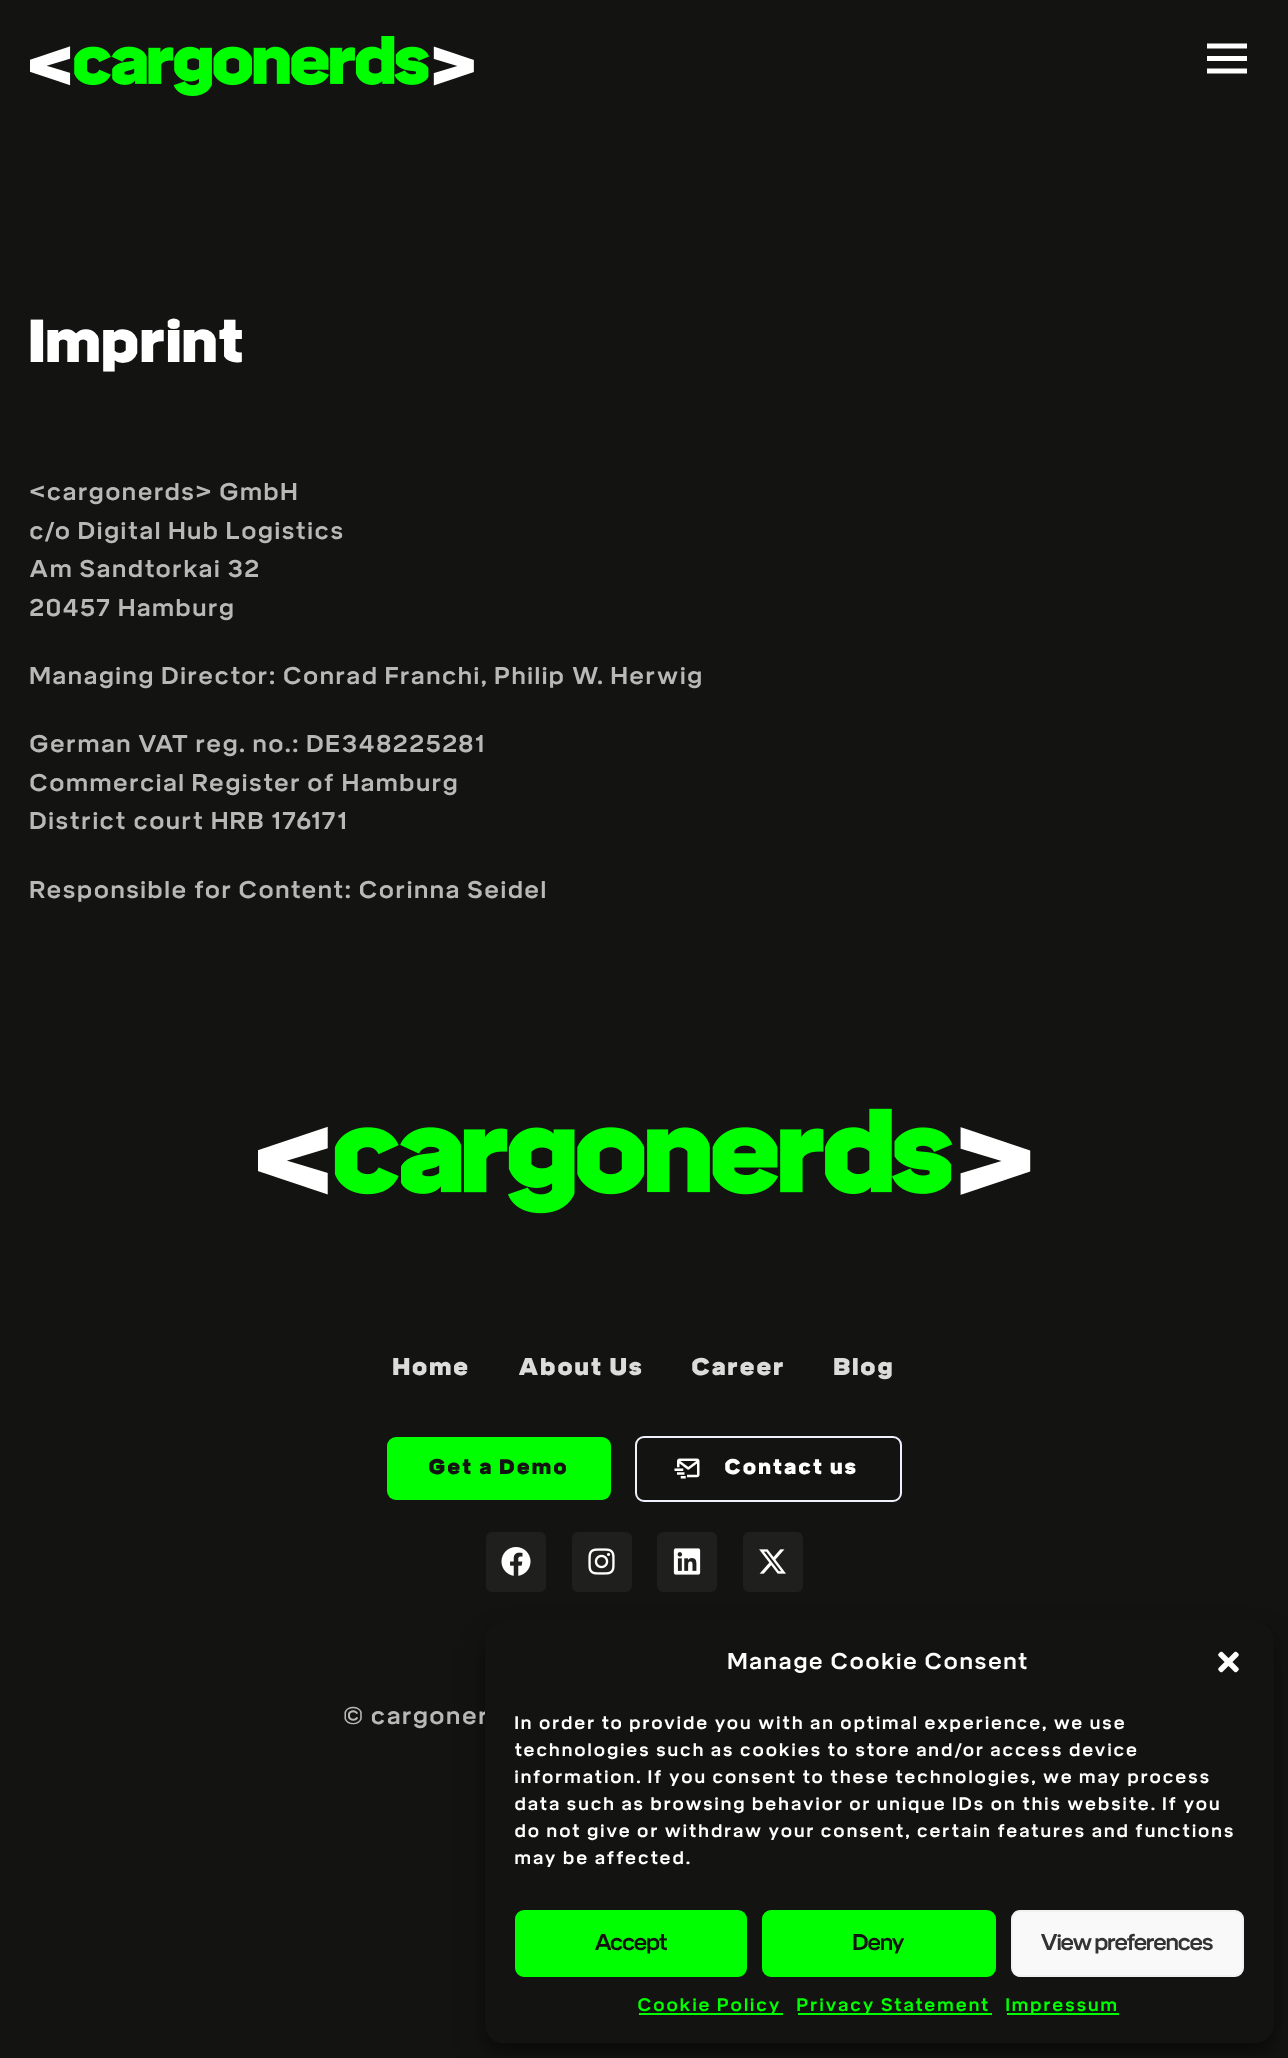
<?xml version="1.0" encoding="UTF-8"?>
<svg xmlns="http://www.w3.org/2000/svg" xmlns:xlink="http://www.w3.org/1999/xlink" width="1288" height="2058">
  <defs>
    <clipPath id="clip1"><rect x="515" y="1710" width="729" height="170" /></clipPath>
  </defs>
  <rect width="100%" height="100%" fill="#131311" />
  <image x="30" y="36" width="444" height="60" xlink:href="image1.png" />
  <path d="M 1207 43.5 h 40 v 5 h -40 z m 0 12.5 h 40 v 5 h -40 z m 0 12.5 h 40 v 5 h -40 z" fill="#ffffff" />
  <image x="258" y="1108" width="773" height="106" xlink:href="image2.png" />
  <rect x="387" y="1437" width="224" height="63" rx="9" fill="#00ff00" />
  <rect x="636" y="1437" width="265" height="64" rx="8" fill="none" stroke="#eff2fc" stroke-width="2" />
  <image x="674" y="1458" width="26" height="21" xlink:href="image3.png" />
  <rect x="486" y="1532" width="60" height="60" rx="6" fill="#1f1f1d" />
  <image x="501" y="1547" width="30" height="29" xlink:href="image4.png" />
  <rect x="572" y="1532" width="60" height="60" rx="6" fill="#1f1f1d" />
  <image x="588" y="1548" width="27" height="27" xlink:href="image5.png" />
  <rect x="657" y="1532" width="60" height="60" rx="6" fill="#1f1f1d" />
  <image x="673" y="1548" width="28" height="27" xlink:href="image6.png" />
  <rect x="743" y="1532" width="60" height="60" rx="6" fill="#1f1f1d" />
  <image x="759" y="1549" width="27" height="25" xlink:href="image7.png" />
  <rect x="485" y="1631" width="789" height="421" rx="18" fill="#000000" fill-opacity="0.23" filter="blur(4.5px)" />
  <rect x="485" y="1637" width="789" height="421" rx="18" fill="#000000" fill-opacity="0.19" filter="blur(15px)" />
  <text x="30" y="362" style="font-family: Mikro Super; font-size: 60px; font-weight: 900; letter-spacing: 3px; fill: #ffffff">Imprint</text>
  <text x="30" y="500" style="font-family: Mikro Super; font-size: 24px; font-weight: 500; letter-spacing: 3px; fill: #b8b8b8">&lt;cargonerds&gt; GmbH</text>
  <text x="30" y="539" style="font-family: Mikro Super; font-size: 24px; font-weight: 500; letter-spacing: 3px; fill: #b8b8b8">c/o Digital Hub Logistics</text>
  <text x="30" y="577" style="font-family: Mikro Super; font-size: 24px; font-weight: 500; letter-spacing: 3px; fill: #b8b8b8">Am Sandtorkai 32</text>
  <text x="30" y="616" style="font-family: Mikro Super; font-size: 24px; font-weight: 500; letter-spacing: 3px; fill: #b8b8b8">20457 Hamburg</text>
  <text x="30" y="684" style="font-family: Mikro Super; font-size: 24px; font-weight: 500; letter-spacing: 3px; fill: #b8b8b8">Managing Director: Conrad Franchi, Philip W. Herwig</text>
  <text x="30" y="752" style="font-family: Mikro Super; font-size: 24px; font-weight: 500; letter-spacing: 3px; fill: #b8b8b8">German VAT reg. no.: DE348225281</text>
  <text x="30" y="791" style="font-family: Mikro Super; font-size: 24px; font-weight: 500; letter-spacing: 3px; fill: #b8b8b8">Commercial Register of Hamburg</text>
  <text x="30" y="829" style="font-family: Mikro Super; font-size: 24px; font-weight: 500; letter-spacing: 3px; fill: #b8b8b8">District court HRB 176171</text>
  <text x="30" y="898" style="font-family: Mikro Super; font-size: 24px; font-weight: 500; letter-spacing: 3px; fill: #b8b8b8">Responsible for Content: Corinna Seidel</text>
  <text x="393" y="1375" style="font-family: Mikro Super; font-size: 24px; font-weight: 900; letter-spacing: 3px; fill: #dcdcdb">Home</text>
  <text x="519" y="1375" style="font-family: Mikro Super; font-size: 24px; font-weight: 900; letter-spacing: 3px; fill: #dcdcdb">About Us</text>
  <text x="692" y="1375" style="font-family: Mikro Super; font-size: 24px; font-weight: 900; letter-spacing: 3px; fill: #dcdcdb">Career</text>
  <text x="834" y="1375" style="font-family: Mikro Super; font-size: 24px; font-weight: 900; letter-spacing: 3px; fill: #dcdcdb">Blog</text>
  <text x="429" y="1474" style="font-family: Mikro Super; font-size: 21px; font-weight: 900; letter-spacing: 3px; fill: #131311">Get a Demo</text>
  <text x="725" y="1474" style="font-family: Mikro Super; font-size: 21px; font-weight: 900; letter-spacing: 3px; fill: #ffffff">Contact us</text>
  <text x="344" y="1724" style="font-family: Mikro Super; font-size: 24px; font-weight: 500; letter-spacing: 3px; fill: #b8b8b8">© cargoner</text>
  <rect x="485" y="1622" width="789" height="421" rx="18" fill="#131311" />
  <text x="728" y="1669" style="font-family: Mikro Super; font-size: 22.5px; font-weight: 500; letter-spacing: 3px; fill: #ffffff">Manage Cookie Consent</text>
  <image x="1218" y="1651" width="21" height="22" xlink:href="image8.png" />
  <g clip-path="url(#clip1)">
    <text x="515" y="1729" style="font-family: Mikro Super; font-size: 18px; font-weight: 500; letter-spacing: 3px; fill: #ffffff">In order to provide you with an optimal experience, we use</text>
    <text x="515" y="1756" style="font-family: Mikro Super; font-size: 18px; font-weight: 500; letter-spacing: 3px; fill: #ffffff">technologies such as cookies to store and/or access device</text>
    <text x="515" y="1783" style="font-family: Mikro Super; font-size: 18px; font-weight: 500; letter-spacing: 3px; fill: #ffffff">information. If you consent to these technologies, we may process</text>
    <text x="515" y="1810" style="font-family: Mikro Super; font-size: 18px; font-weight: 500; letter-spacing: 3px; fill: #ffffff">data such as browsing behavior or unique IDs on this website. If you</text>
    <text x="515" y="1837" style="font-family: Mikro Super; font-size: 18px; font-weight: 500; letter-spacing: 3px; fill: #ffffff">do not give or withdraw your consent, certain features and functions</text>
    <text x="515" y="1864" style="font-family: Mikro Super; font-size: 18px; font-weight: 500; letter-spacing: 3px; fill: #ffffff">may be affected.</text>
  </g>
  <rect x="516" y="1911" width="230" height="65" rx="8" fill="#00ff00" stroke="#00ff00" stroke-width="2" />
  <text x="595" y="1950" style="font-family: Mikro Super; font-size: 22.5px; font-weight: 500; fill: #131311">Accept</text>
  <rect x="763" y="1911" width="232" height="65" rx="8" fill="#00ff00" stroke="#00ff00" stroke-width="2" />
  <text x="853" y="1950" style="font-family: Mikro Super; font-size: 22.5px; font-weight: 500; fill: #131311">Deny</text>
  <rect x="1012" y="1911" width="231" height="65" rx="8" fill="#f9f9f9" stroke="#f2f2f2" stroke-width="2" />
  <text x="1041" y="1950" style="font-family: Mikro Super; font-size: 22.5px; font-weight: 500; fill: #333333">View preferences</text>
  <rect x="639" y="2013" width="144" height="2" fill="#00ff00" />
  <text x="638" y="2011" style="font-family: Mikro Super; font-size: 18px; font-weight: 500; letter-spacing: 3px; fill: #00ff00">Cookie Policy</text>
  <rect x="798" y="2013" width="194" height="2" fill="#00ff00" />
  <text x="797" y="2011" style="font-family: Mikro Super; font-size: 18px; font-weight: 500; letter-spacing: 3px; fill: #00ff00">Privacy Statement</text>
  <rect x="1007" y="2013" width="112" height="2" fill="#00ff00" />
  <text x="1006" y="2011" style="font-family: Mikro Super; font-size: 18px; font-weight: 500; letter-spacing: 3px; fill: #00ff00">Impressum</text>
</svg>
